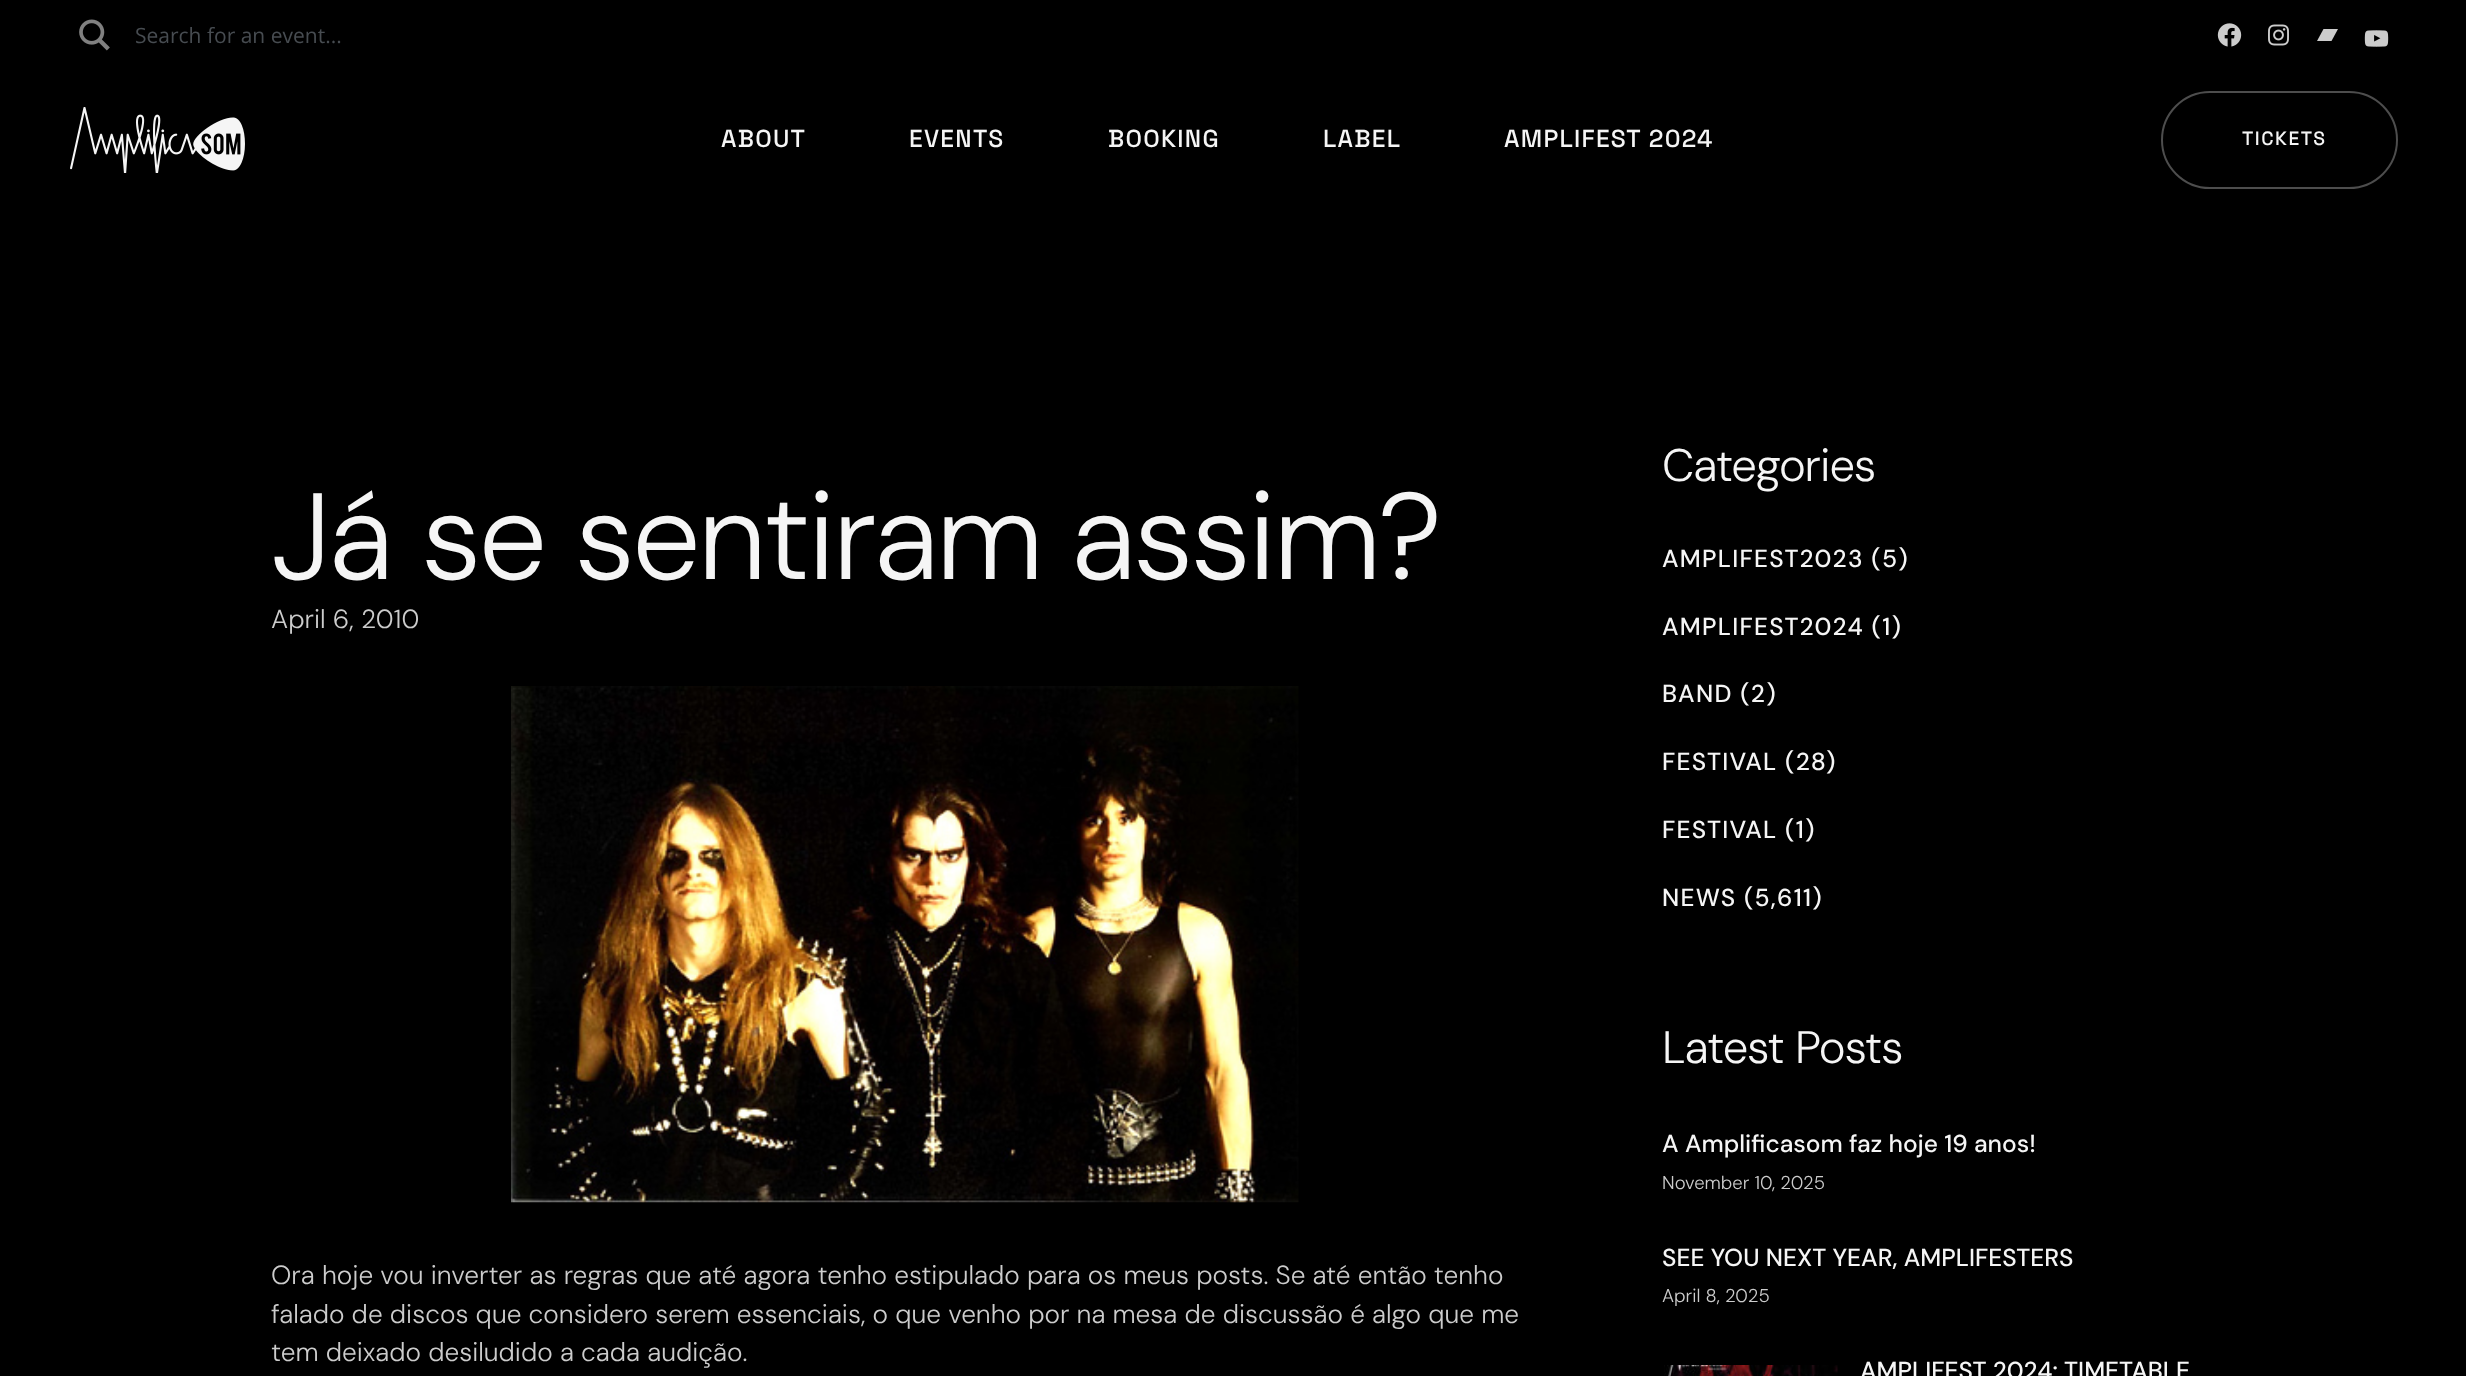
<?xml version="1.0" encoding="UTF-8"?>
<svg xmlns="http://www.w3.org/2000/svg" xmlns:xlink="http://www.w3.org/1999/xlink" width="2466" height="1376">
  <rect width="100%" height="100%" fill="#000000" />
  <image x="79" y="19" width="31" height="32" xlink:href="image1.png" />
  <image x="2217" y="23" width="25" height="24" xlink:href="image2.png" />
  <image x="2268" y="24" width="21" height="22" xlink:href="image3.png" />
  <path d="M 2331.5 41 h -14.5 l 6.5 -12 h 14.5 l -6.5 12" fill="#cccccc" />
  <image x="2364" y="30" width="25" height="17" xlink:href="image4.png" />
  <image x="70" y="107" width="175" height="66" xlink:href="image5.png" />
  <rect x="2162" y="92" width="235" height="96" rx="48" fill="none" stroke="#4d4d4d" stroke-width="2" />
  <image x="511" y="686" width="788" height="517" xlink:href="image6.png" />
  <image x="1664" y="1365" width="174" height="11" xlink:href="image7.png" />
  <text x="135" y="43" style="font-family: Open Sans; font-size: 21px; fill: #474c51">Search for an event...</text>
  <text x="721" y="147" style="font-family: Space Grotesk; font-size: 24.5px; font-weight: 500; letter-spacing: 1.25px; fill: #f5f5f5">ABOUT</text>
  <text x="909" y="147" style="font-family: Space Grotesk; font-size: 24.5px; font-weight: 500; letter-spacing: 1.25px; fill: #f5f5f5">EVENTS</text>
  <text x="1108" y="147" style="font-family: Space Grotesk; font-size: 24.5px; font-weight: 500; letter-spacing: 1.25px; fill: #f5f5f5">BOOKING</text>
  <text x="1323" y="147" style="font-family: Space Grotesk; font-size: 24.5px; font-weight: 500; letter-spacing: 1.25px; fill: #f5f5f5">LABEL</text>
  <text x="1504" y="147" style="font-family: Space Grotesk; font-size: 24.5px; font-weight: 500; letter-spacing: 1.25px; fill: #f5f5f5">AMPLIFEST 2024</text>
  <text x="2242" y="145" style="font-family: Space Grotesk; font-size: 19.25px; font-weight: 500; letter-spacing: 1.5px; fill: #f5f5f5">TICKETS</text>
  <text x="271" y="579" style="font-family: DM Sans; font-size: 122.5px; font-weight: 300; letter-spacing: -3.1px; fill: #f5f5f5">Já se sentiram assim?</text>
  <text x="271" y="628" style="font-family: DM Sans; font-size: 26.25px; font-weight: 300; fill: #cccccc">April 6, 2010</text>
  <text x="271" y="1284" style="font-family: DM Sans; font-size: 26.25px; font-weight: 300; fill: #cccccc">Ora hoje vou inverter as regras que até agora tenho estipulado para os meus posts. Se até então tenho</text>
  <text x="271" y="1323" style="font-family: DM Sans; font-size: 26.25px; font-weight: 300; fill: #cccccc">falado de discos que considero serem essenciais, o que venho por na mesa de discussão é algo que me</text>
  <text x="271" y="1361" style="font-family: DM Sans; font-size: 26.25px; font-weight: 300; fill: #cccccc">tem deixado desiludido a cada audição.</text>
  <text x="1662" y="481" style="font-family: DM Sans; font-size: 45.5px; font-weight: 300; letter-spacing: -1.1px; fill: #f5f5f5">Categories</text>
  <text x="1662" y="567" style="font-family: DM Sans; font-size: 24.5px; font-weight: 500; letter-spacing: 1.25px; fill: #f5f5f5">AMPLIFEST2023 (5)</text>
  <text x="1662" y="635" style="font-family: DM Sans; font-size: 24.5px; font-weight: 500; letter-spacing: 1.25px; fill: #f5f5f5">AMPLIFEST2024 (1)</text>
  <text x="1662" y="702" style="font-family: DM Sans; font-size: 24.5px; font-weight: 500; letter-spacing: 1.25px; fill: #f5f5f5">BAND (2)</text>
  <text x="1662" y="770" style="font-family: DM Sans; font-size: 24.5px; font-weight: 500; letter-spacing: 1.25px; fill: #f5f5f5">FESTIVAL (28)</text>
  <text x="1662" y="838" style="font-family: DM Sans; font-size: 24.5px; font-weight: 500; letter-spacing: 1.25px; fill: #f5f5f5">FESTIVAL (1)</text>
  <text x="1662" y="906" style="font-family: DM Sans; font-size: 24.5px; font-weight: 500; letter-spacing: 1.25px; fill: #f5f5f5">NEWS (5,611)</text>
  <text x="1662" y="1063" style="font-family: DM Sans; font-size: 45.5px; font-weight: 300; letter-spacing: -1.1px; fill: #f5f5f5">Latest Posts</text>
  <text x="1662" y="1152" style="font-family: DM Sans; font-size: 24.5px; font-weight: 500; fill: #f5f5f5">A Amplificasom faz hoje 19 anos!</text>
  <text x="1662" y="1189" style="font-family: DM Sans; font-size: 18.5px; font-weight: 300; fill: #cccccc">November 10, 2025</text>
  <text x="1662" y="1266" style="font-family: DM Sans; font-size: 24.5px; font-weight: 500; fill: #f5f5f5">SEE YOU NEXT YEAR, AMPLIFESTERS</text>
  <text x="1662" y="1302" style="font-family: DM Sans; font-size: 18.5px; font-weight: 300; fill: #cccccc">April 8, 2025</text>
  <text x="1860" y="1379" style="font-family: DM Sans; font-size: 24.5px; font-weight: 500; fill: #f5f5f5">AMPLIFEST 2024: TIMETABLE</text>
</svg>
